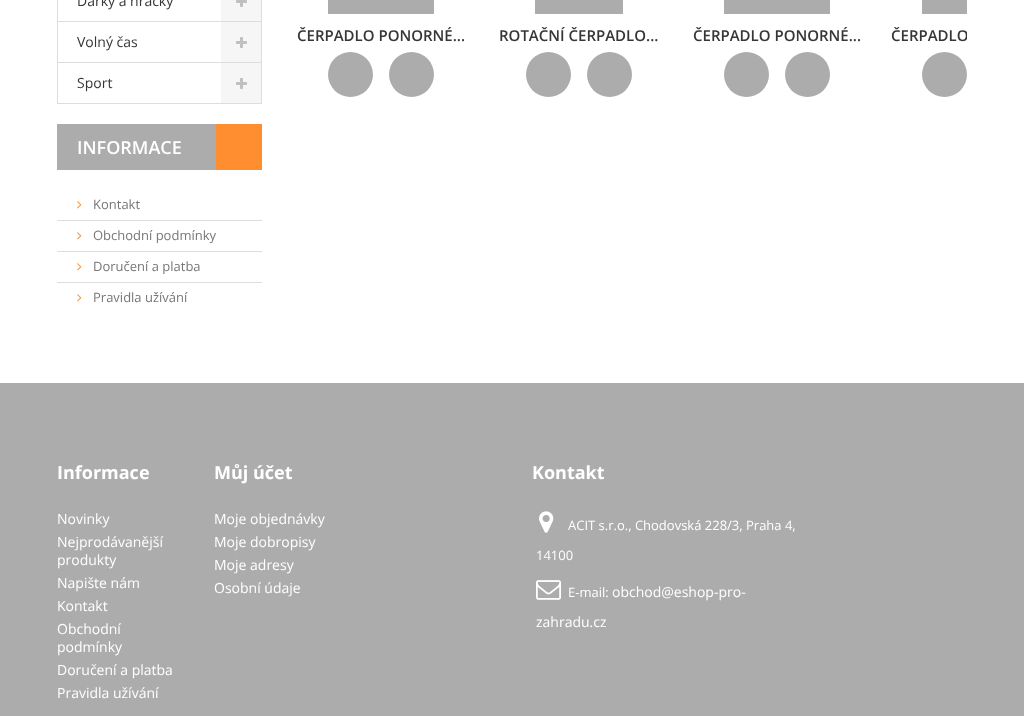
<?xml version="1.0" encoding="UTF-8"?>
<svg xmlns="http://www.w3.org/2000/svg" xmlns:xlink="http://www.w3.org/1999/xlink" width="1024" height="716">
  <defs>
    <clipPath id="clip1"><rect x="292" width="675" height="111" /></clipPath>
  </defs>
  <rect width="100%" height="100%" fill="#ffffff" />
  <rect x="57" y="21" width="164" height="1" fill="#dddddd" />
  <rect x="57" width="1" height="22" fill="#dddddd" />
  <rect x="221" width="40" height="21" fill="#f6f6f6" />
  <rect x="261" width="1" height="104" fill="#dddddd" />
  <rect x="221" y="21" width="41" height="1" fill="#dddddd" />
  <image x="236" y="0" width="11" height="7" xlink:href="image1.png" />
  <rect x="57" y="62" width="205" height="1" fill="#dddddd" />
  <rect x="57" y="22" width="1" height="41" fill="#dddddd" />
  <rect x="221" y="22" width="40" height="40" fill="#f6f6f6" />
  <image x="236" y="37" width="11" height="11" xlink:href="image2.png" />
  <rect x="57" y="103" width="205" height="1" fill="#dddddd" />
  <rect x="57" y="63" width="1" height="41" fill="#dddddd" />
  <rect x="221" y="63" width="40" height="40" fill="#f6f6f6" />
  <image x="236" y="78" width="11" height="11" xlink:href="image2.png" />
  <rect x="57" y="124" width="159" height="46" fill="#acacac" />
  <rect x="216" y="124" width="46" height="46" fill="#ff8e30" />
  <image x="77" y="201" width="5" height="8" xlink:href="image3.png" />
  <rect x="57" y="220" width="205" height="1" fill="#dddddd" />
  <image x="77" y="232" width="5" height="8" xlink:href="image3.png" />
  <rect x="57" y="251" width="205" height="1" fill="#dddddd" />
  <image x="77" y="263" width="5" height="8" xlink:href="image3.png" />
  <rect x="57" y="282" width="205" height="1" fill="#dddddd" />
  <image x="77" y="294" width="5" height="8" xlink:href="image3.png" />
  <rect x="328" width="106" height="14" fill="#acacac" />
  <circle cx="350.5" cy="74.5" r="22.5" fill="#acacac" />
  <circle cx="411.5" cy="74.5" r="22.5" fill="#acacac" />
  <rect x="535" width="88" height="14" fill="#acacac" />
  <circle cx="548.5" cy="74.5" r="22.5" fill="#acacac" />
  <circle cx="609.5" cy="74.5" r="22.5" fill="#acacac" />
  <rect x="724" width="106" height="14" fill="#acacac" />
  <circle cx="746.5" cy="74.5" r="22.5" fill="#acacac" />
  <circle cx="807.5" cy="74.5" r="22.5" fill="#acacac" />
  <rect x="922" width="45" height="14" fill="#acacac" />
  <circle cx="944.5" cy="74.5" r="22.5" fill="#acacac" />
  <rect y="383" width="1024" height="333" fill="#acacac" />
  <image x="539" y="511" width="15" height="22" xlink:href="image4.png" />
  <image x="536" y="580" width="25" height="20" xlink:href="image5.png" />
  <text x="77" y="6" style="font-family: Open Sans; font-size: 14px; fill: #363636">Dárky a hračky</text>
  <text x="77" y="47" style="font-family: Open Sans; font-size: 14px; fill: #363636">Volný čas</text>
  <text x="77" y="88" style="font-family: Open Sans; font-size: 14px; fill: #363636">Sport</text>
  <text x="77" y="154" style="font-family: Open Sans; font-size: 18px; font-weight: 600; fill: #ffffff">INFORMACE</text>
  <text x="93" y="209" style="font-family: Open Sans; font-size: 13px; fill: #777777">Kontakt</text>
  <text x="93" y="240" style="font-family: Open Sans; font-size: 13px; fill: #777777">Obchodní podmínky</text>
  <text x="93" y="271" style="font-family: Open Sans; font-size: 13px; fill: #777777">Doručení a platba</text>
  <text x="93" y="302" style="font-family: Open Sans; font-size: 13px; fill: #777777">Pravidla užívání</text>
  <text x="297" y="41" style="font-family: Open Sans; font-size: 15px; font-weight: 600; fill: #363636">ČERPADLO PONORNÉ...</text>
  <text x="499" y="41" style="font-family: Open Sans; font-size: 15px; font-weight: 600; fill: #363636">ROTAČNÍ ČERPADLO...</text>
  <text x="693" y="41" style="font-family: Open Sans; font-size: 15px; font-weight: 600; fill: #363636">ČERPADLO PONORNÉ...</text>
  <g clip-path="url(#clip1)">
    <text x="891" y="41" style="font-family: Open Sans; font-size: 15px; font-weight: 600; fill: #363636">ČERPADLO</text>
  </g>
  <text x="57" y="479" style="font-family: Open Sans; font-size: 18px; font-weight: bold; fill: #ffffff">Informace</text>
  <text x="57" y="524" style="font-family: Open Sans; font-size: 14px; fill: #ffffff">Novinky</text>
  <text x="57" y="547" style="font-family: Open Sans; font-size: 14px; fill: #ffffff">Nejprodávanější</text>
  <text x="57" y="565" style="font-family: Open Sans; font-size: 14px; fill: #ffffff">produkty</text>
  <text x="57" y="588" style="font-family: Open Sans; font-size: 14px; fill: #ffffff">Napište nám</text>
  <text x="57" y="611" style="font-family: Open Sans; font-size: 14px; fill: #ffffff">Kontakt</text>
  <text x="57" y="634" style="font-family: Open Sans; font-size: 14px; fill: #ffffff">Obchodní</text>
  <text x="57" y="652" style="font-family: Open Sans; font-size: 14px; fill: #ffffff">podmínky</text>
  <text x="57" y="675" style="font-family: Open Sans; font-size: 14px; fill: #ffffff">Doručení a platba</text>
  <text x="57" y="698" style="font-family: Open Sans; font-size: 14px; fill: #ffffff">Pravidla užívání</text>
  <text x="214" y="479" style="font-family: Open Sans; font-size: 18px; font-weight: bold; fill: #ffffff">Můj účet</text>
  <text x="214" y="524" style="font-family: Open Sans; font-size: 14px; fill: #ffffff">Moje objednávky</text>
  <text x="214" y="547" style="font-family: Open Sans; font-size: 14px; fill: #ffffff">Moje dobropisy</text>
  <text x="214" y="570" style="font-family: Open Sans; font-size: 14px; fill: #ffffff">Moje adresy</text>
  <text x="214" y="593" style="font-family: Open Sans; font-size: 14px; fill: #ffffff">Osobní údaje</text>
  <text x="532" y="479" style="font-family: Open Sans; font-size: 18px; font-weight: bold; fill: #ffffff">Kontakt</text>
  <text x="568" y="530" style="font-family: Open Sans; font-size: 13px; fill: #ffffff">ACIT s.r.o., Chodovská 228/3, Praha 4,</text>
  <text x="536" y="560" style="font-family: Open Sans; font-size: 13px; fill: #ffffff">14100</text>
  <text x="568" y="597" style="font-family: Open Sans; font-size: 13px; fill: #ffffff">E-mail:</text>
  <text x="612" y="597" style="font-family: Open Sans; font-size: 14px; fill: #ffffff">obchod@eshop-pro-</text>
  <text x="536" y="627" style="font-family: Open Sans; font-size: 14px; fill: #ffffff">zahradu.cz</text>
</svg>
